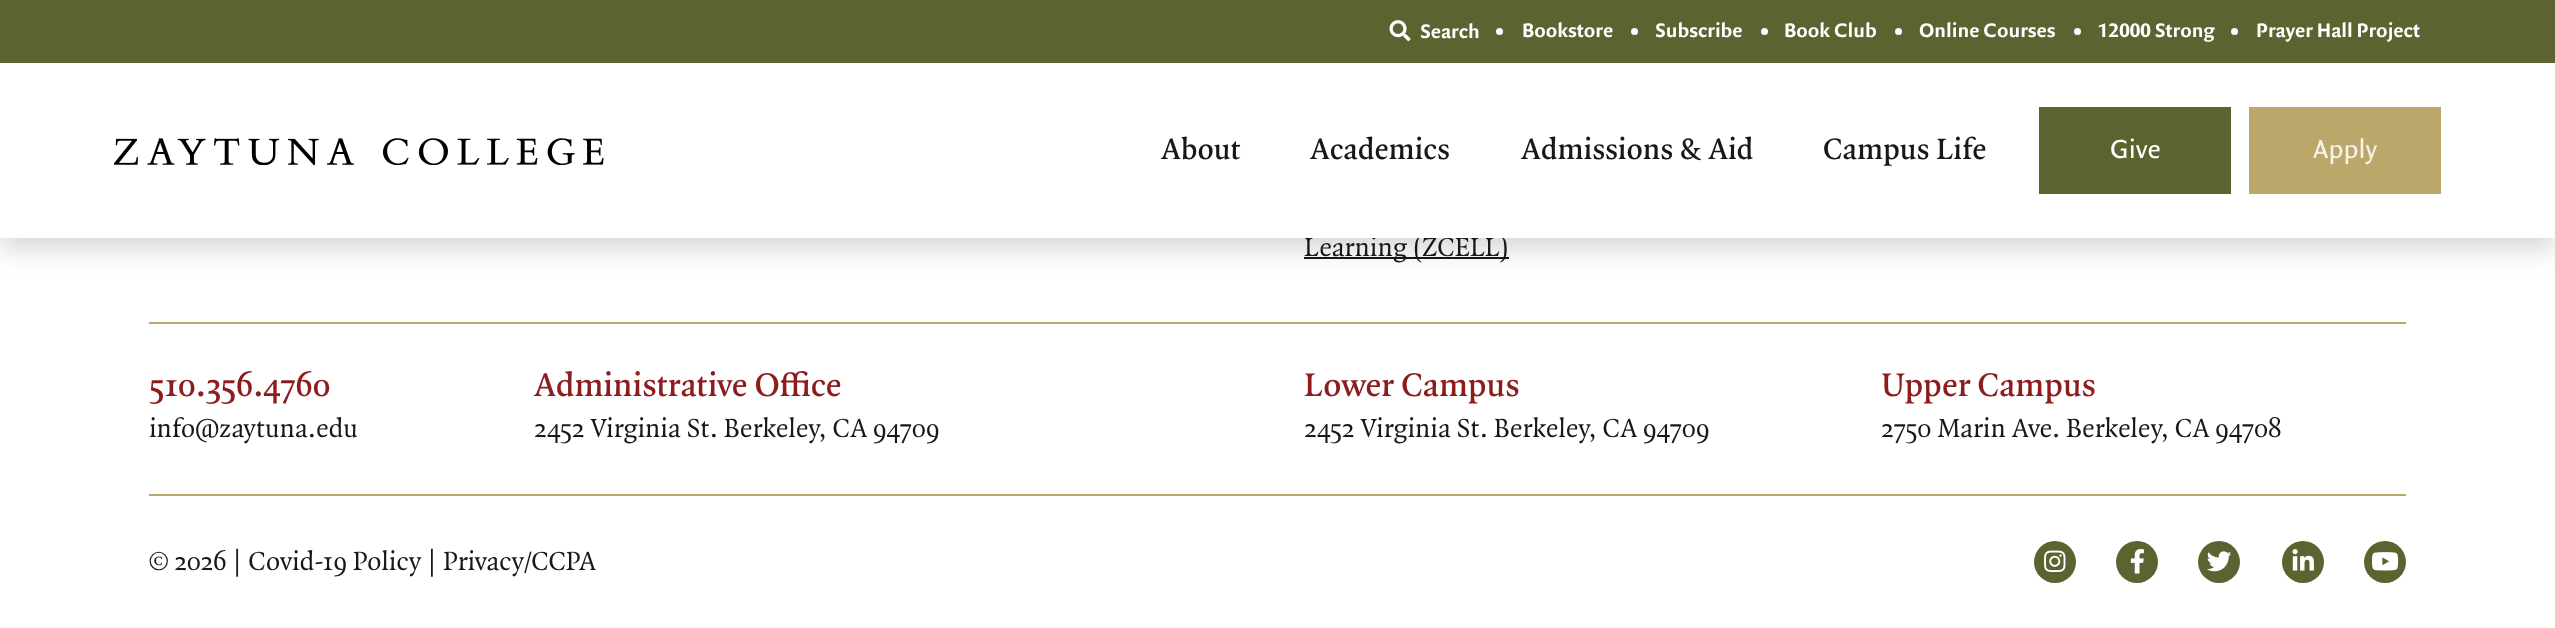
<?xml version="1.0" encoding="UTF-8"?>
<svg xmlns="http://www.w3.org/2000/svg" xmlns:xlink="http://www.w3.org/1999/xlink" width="2555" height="628">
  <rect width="100%" height="100%" fill="#ffffff" />
  <rect x="1304" y="257" width="205" height="2" fill="#181818" />
  <rect y="11" width="2555" height="238" fill="#000000" fill-opacity="0.16" filter="blur(13px)" />
  <rect width="2555" height="63" fill="#5c6330" />
  <image x="1389" y="20" width="22" height="22" xlink:href="image1.png" />
  <circle cx="1499.5" cy="31.5" r="3.5" fill="#ffffff" />
  <circle cx="1634.5" cy="31.5" r="3.5" fill="#ffffff" />
  <circle cx="1764.5" cy="31.5" r="3.5" fill="#ffffff" />
  <circle cx="1898.5" cy="31.5" r="3.5" fill="#ffffff" />
  <circle cx="2077.5" cy="31.5" r="3.5" fill="#ffffff" />
  <circle cx="2234.5" cy="31.5" r="3.5" fill="#ffffff" />
  <rect x="149" y="322" width="2257" height="2" fill="#baa769" />
  <rect x="149" y="494" width="2257" height="2" fill="#baa769" />
  <circle cx="2055" cy="562" r="21" fill="#5c6330" />
  <image x="2044" y="550" width="22" height="22" xlink:href="image3.png" />
  <circle cx="2137" cy="562" r="21" fill="#5c6330" />
  <image x="2130" y="549" width="14" height="25" xlink:href="image4.png" />
  <circle cx="2219" cy="562" r="21" fill="#5c6330" />
  <image x="2207" y="551" width="25" height="21" xlink:href="image5.png" />
  <circle cx="2303" cy="562" r="21" fill="#5c6330" />
  <image x="2292" y="549" width="22" height="22" xlink:href="image6.png" />
  <circle cx="2385" cy="562" r="21" fill="#5c6330" />
  <image x="2371" y="552" width="28" height="19" xlink:href="image7.png" />
  <text x="1420" y="38" style="font-family: 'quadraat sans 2'; font-size: 21px; fill: #ffffff">Search</text>
  <text x="1522" y="37" style="font-family: 'quadraat sans 2'; font-size: 21px; fill: #ffffff">Bookstore</text>
  <text x="1655" y="37" style="font-family: 'quadraat sans 2'; font-size: 21px; fill: #ffffff">Subscribe</text>
  <text x="1784" y="37" style="font-family: 'quadraat sans 2'; font-size: 21px; fill: #ffffff">Book Club</text>
  <text x="1919" y="37" style="font-family: 'quadraat sans 2'; font-size: 21px; fill: #ffffff">Online Courses</text>
  <text x="2098" y="37" style="font-family: 'quadraat sans 2'; font-size: 21px; fill: #ffffff">12000 Strong</text>
  <text x="2256" y="37" style="font-family: 'quadraat sans 2'; font-size: 21px; fill: #ffffff">Prayer Hall Project</text>
  <text x="1304" y="256" style="font-family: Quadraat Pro; font-size: 28px; fill: #181818">Learning (ZCELL)</text>
  <rect y="63" width="2555" height="175" fill="#ffffff" />
  <rect x="2249" y="107" width="192" height="87" fill="#baa769" />
  <text x="2313" y="158" style="font-family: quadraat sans; font-size: 28px; fill: #f5f2ea">Apply</text>
  <rect x="2039" y="107" width="192" height="87" fill="#5c6330" />
  <text x="2110" y="158" style="font-family: quadraat sans; font-size: 28px; fill: #ffffff">Give</text>
  <text x="1823" y="159" style="font-family: Quadraat Pro; font-size: 31.5px; font-weight: 600; fill: #181818">Campus Life</text>
  <text x="1521" y="159" style="font-family: Quadraat Pro; font-size: 31.5px; font-weight: 600; fill: #181818">Admissions &amp; Aid</text>
  <text x="1310" y="159" style="font-family: Quadraat Pro; font-size: 31.5px; font-weight: 600; fill: #181818">Academics</text>
  <text x="1161" y="159" style="font-family: Quadraat Pro; font-size: 31.5px; font-weight: 600; fill: #181818">About</text>
  <image x="114" y="138" width="490" height="27" xlink:href="image2.png" />
  <text x="149" y="396" style="font-family: Quadraat Pro; font-size: 35px; font-weight: 600; fill: #8d1c1e">510.356.4760</text>
  <text x="149" y="437" style="font-family: Quadraat Pro; font-size: 28px; fill: #181818">info@zaytuna.edu</text>
  <text x="534" y="396" style="font-family: Quadraat Pro; font-size: 35px; font-weight: 600; fill: #8d1c1e">Administrative Office</text>
  <text x="534" y="437" style="font-family: Quadraat Pro; font-size: 28px; fill: #181818">2452 Virginia St. Berkeley, CA 94709</text>
  <text x="1304" y="396" style="font-family: Quadraat Pro; font-size: 35px; font-weight: 600; fill: #8d1c1e">Lower Campus</text>
  <text x="1304" y="437" style="font-family: Quadraat Pro; font-size: 28px; fill: #181818">2452 Virginia St. Berkeley, CA 94709</text>
  <text x="1881" y="396" style="font-family: Quadraat Pro; font-size: 35px; font-weight: 600; fill: #8d1c1e">Upper Campus</text>
  <text x="1881" y="437" style="font-family: Quadraat Pro; font-size: 28px; fill: #181818">2750 Marin Ave. Berkeley, CA 94708</text>
  <text x="149" y="570" style="font-family: Quadraat Pro; font-size: 28px; fill: #181818">© 2026</text>
  <text x="232" y="570" style="font-family: Quadraat Pro; font-size: 28px; fill: #181818">| Covid-19 Policy | Privacy/CCPA</text>
</svg>
